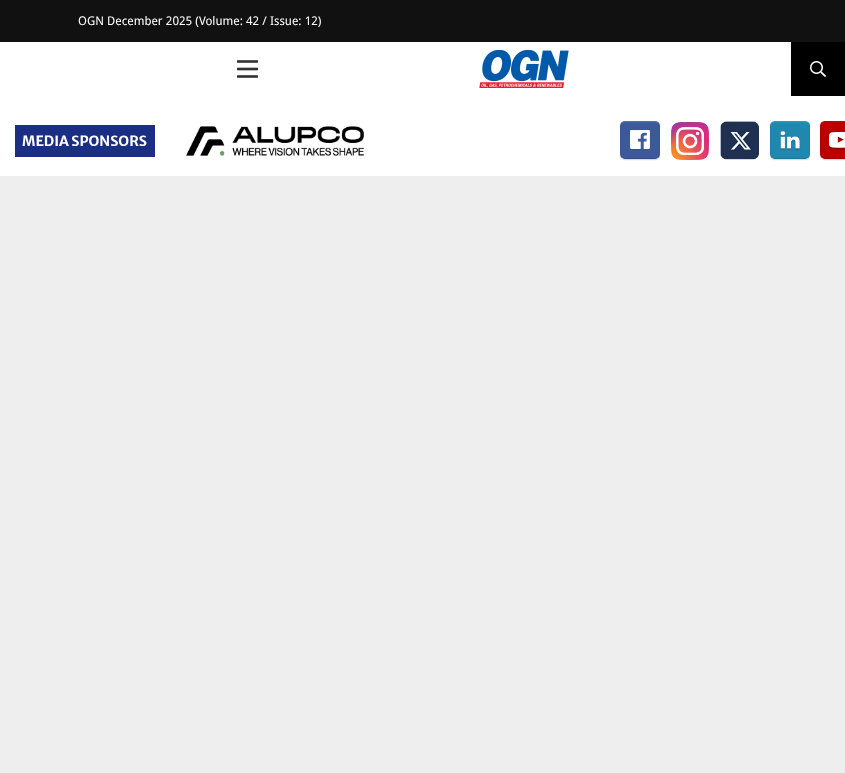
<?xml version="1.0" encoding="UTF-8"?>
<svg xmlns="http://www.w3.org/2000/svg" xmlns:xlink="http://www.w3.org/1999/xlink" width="845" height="773">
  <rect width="100%" height="100%" fill="#ffffff" />
  <rect width="845" height="42" fill="#111111" />
  <image x="237" y="60" width="21" height="18" xlink:href="image1.png" />
  <image x="479" y="50" width="90" height="38" xlink:href="image2.png" />
  <rect x="791" y="42" width="54" height="54" fill="#000000" />
  <image x="810" y="61" width="16" height="16" xlink:href="image3.png" />
  <rect x="15" y="125" width="140" height="32" fill="#1a2e84" />
  <image x="186" y="126" width="178" height="30" xlink:href="image4.png" />
  <image x="620" y="121" width="40" height="40" xlink:href="image5.png" />
  <image x="671" y="122" width="38" height="38" xlink:href="image6.png" />
  <image x="720" y="121" width="39" height="39" xlink:href="image7.png" />
  <image x="770" y="121" width="40" height="40" xlink:href="image8.png" />
  <image x="820" y="121" width="25" height="40" xlink:href="image9.png" />
  <rect y="176" width="845" height="597" fill="#eeeeee" />
  <text x="78" y="25" style="font-family: Droid Sans; font-size: 12px; fill: #ffffff">OGN December 2025 (Volume: 42 / Issue: 12)</text>
  <text x="22" y="146" style="font-family: Merriweather Sans; font-size: 14px; font-weight: bold; fill: #ffffff">MEDIA SPONSORS</text>
</svg>
